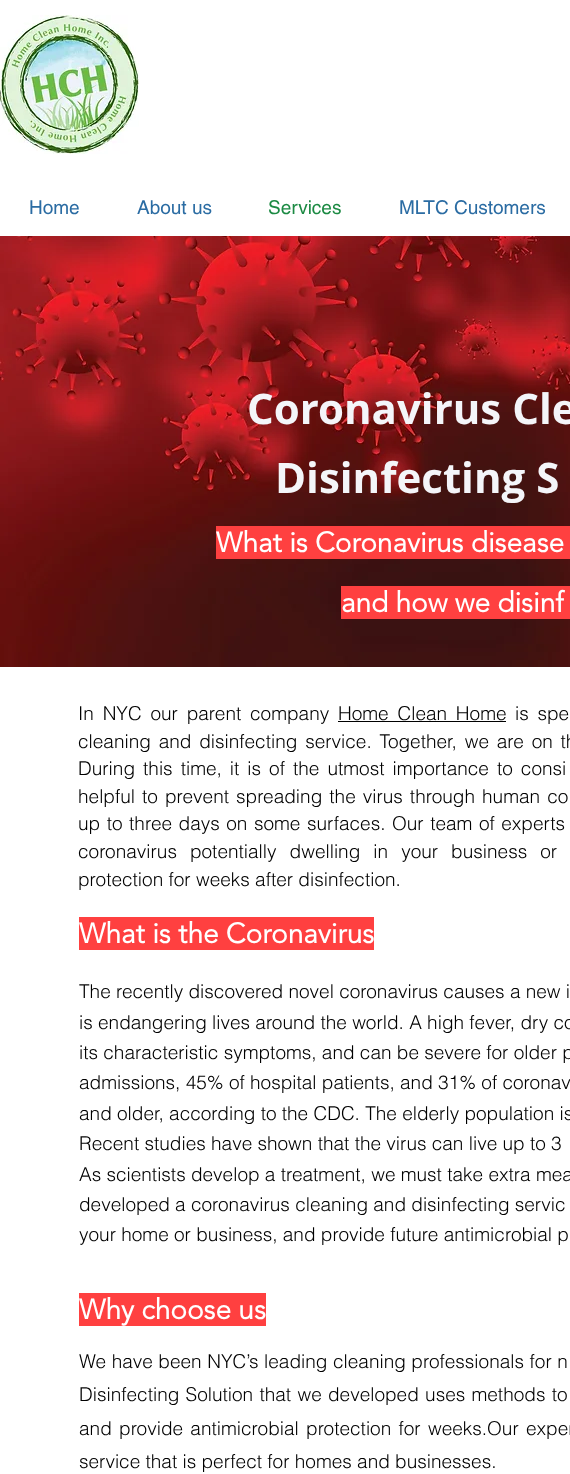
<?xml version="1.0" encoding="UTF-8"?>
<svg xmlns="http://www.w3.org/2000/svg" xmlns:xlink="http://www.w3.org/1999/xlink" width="570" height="1474">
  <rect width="100%" height="100%" fill="#ffffff" />
  <image x="0" y="15" width="139" height="139" xlink:href="image1.png" />
  <image x="0" y="236" width="570" height="431" xlink:href="image2.png" />
  <rect x="216" y="526" width="354" height="33" fill="#ff4040" />
  <rect x="341" y="586" width="229" height="33" fill="#ff4040" />
  <rect x="338" y="721" width="168" height="1" fill="#000000" />
  <rect x="79" y="917" width="295" height="33" fill="#ff4040" />
  <rect x="79" y="1293" width="187" height="33" fill="#ff4040" />
  <text x="29" y="214" style="font-family: helvetica; font-size: 19px; fill: #2b6ca3">Home</text>
  <text x="137" y="214" style="font-family: helvetica; font-size: 19px; fill: #2b6ca3">About us</text>
  <text x="268" y="214" style="font-family: helvetica; font-size: 19px; fill: #1c8a43">Services</text>
  <text x="399" y="214" style="font-family: helvetica; font-size: 19px; fill: #2b6ca3">MLTC Customers</text>
  <text x="247" y="424" style="font-family: Open Sans; font-size: 42px; font-weight: bold; fill: #f4f5f9">Coronavirus Cle</text>
  <text x="275" y="493" style="font-family: Open Sans; font-size: 42px; font-weight: bold; fill: #f4f5f9">Disinfecting S</text>
  <text x="216" y="552" style="font-family: 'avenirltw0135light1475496'; font-size: 28px; font-weight: bold; fill: #ffffff">What is Coronavirus disease</text>
  <text x="341" y="612" style="font-family: 'avenirltw0135light1475496'; font-size: 28px; font-weight: bold; fill: #ffffff">and how we disinf</text>
  <text x="78" y="720" word-spacing="3.5" style="font-family: helvetica; font-size: 19px; font-weight: 300; fill: #000000">In NYC our parent company</text>
  <text x="338" y="720" word-spacing="3.5" style="font-family: helvetica; font-size: 19px; font-weight: 300; fill: #000000">Home Clean Home</text>
  <text x="515" y="720" word-spacing="3.5" style="font-family: helvetica; font-size: 19px; font-weight: 300; fill: #000000">is spe</text>
  <text x="78" y="748" word-spacing="2.5" style="font-family: helvetica; font-size: 19px; font-weight: 300; fill: #000000">cleaning and disinfecting service. Together, we are on th</text>
  <text x="78" y="775" word-spacing="2.75" style="font-family: helvetica; font-size: 19px; font-weight: 300; fill: #000000">During this time, it is of the utmost importance to consi</text>
  <text x="78" y="803" word-spacing="1.75" style="font-family: helvetica; font-size: 19px; font-weight: 300; fill: #000000">helpful to prevent spreading the virus through human co</text>
  <text x="78" y="830" word-spacing="1.25" style="font-family: helvetica; font-size: 19px; font-weight: 300; fill: #000000">up to three days on some surfaces. Our team of experts</text>
  <text x="78" y="858" word-spacing="7.75" style="font-family: helvetica; font-size: 19px; font-weight: 300; fill: #000000">coronavirus potentially dwelling in your business or</text>
  <text x="78" y="886" style="font-family: helvetica; font-size: 19px; font-weight: 300; fill: #000000">protection for weeks after disinfection.</text>
  <text x="79" y="943" style="font-family: 'avenirltw0135light1475496'; font-size: 28px; font-weight: bold; fill: #ffffff">What is the Coronavirus</text>
  <text x="79" y="998" style="font-family: helvetica; font-size: 19px; font-weight: 300; fill: #000000">The recently discovered novel coronavirus causes a new i</text>
  <text x="79" y="1029" style="font-family: helvetica; font-size: 19px; font-weight: 300; fill: #000000">is endangering lives around the world. A high fever, dry co</text>
  <text x="79" y="1059" style="font-family: helvetica; font-size: 19px; font-weight: 300; fill: #000000">its characteristic symptoms, and can be severe for older p</text>
  <text x="79" y="1089" style="font-family: helvetica; font-size: 19px; font-weight: 300; fill: #000000">admissions, 45% of hospital patients, and 31% of coronav</text>
  <text x="79" y="1120" style="font-family: helvetica; font-size: 19px; font-weight: 300; fill: #000000">and older, according to the CDC. The elderly population is</text>
  <text x="79" y="1150" style="font-family: helvetica; font-size: 19px; font-weight: 300; fill: #000000">Recent studies have shown that the virus can live up to 3</text>
  <text x="79" y="1181" style="font-family: helvetica; font-size: 19px; font-weight: 300; fill: #000000">As scientists develop a treatment, we must take extra mea</text>
  <text x="79" y="1211" style="font-family: helvetica; font-size: 19px; font-weight: 300; fill: #000000">developed a coronavirus cleaning and disinfecting servic</text>
  <text x="79" y="1241" style="font-family: helvetica; font-size: 19px; font-weight: 300; fill: #000000">your home or business, and provide future antimicrobial p</text>
  <text x="79" y="1319" style="font-family: 'avenirltw0135light1475496'; font-size: 28px; font-weight: bold; fill: #ffffff">Why choose us</text>
  <text x="79" y="1368" word-spacing="0.25" style="font-family: helvetica; font-size: 19px; font-weight: 300; fill: #000000">We have been NYC’s leading cleaning professionals for n</text>
  <text x="79" y="1401" word-spacing="1" style="font-family: helvetica; font-size: 19px; font-weight: 300; fill: #000000">Disinfecting Solution that we developed uses methods to</text>
  <text x="79" y="1435" word-spacing="2" style="font-family: helvetica; font-size: 19px; font-weight: 300; fill: #000000">and provide antimicrobial protection for weeks.Our exper</text>
  <text x="79" y="1468" style="font-family: helvetica; font-size: 19px; font-weight: 300; fill: #000000">service that is perfect for homes and businesses.</text>
</svg>
